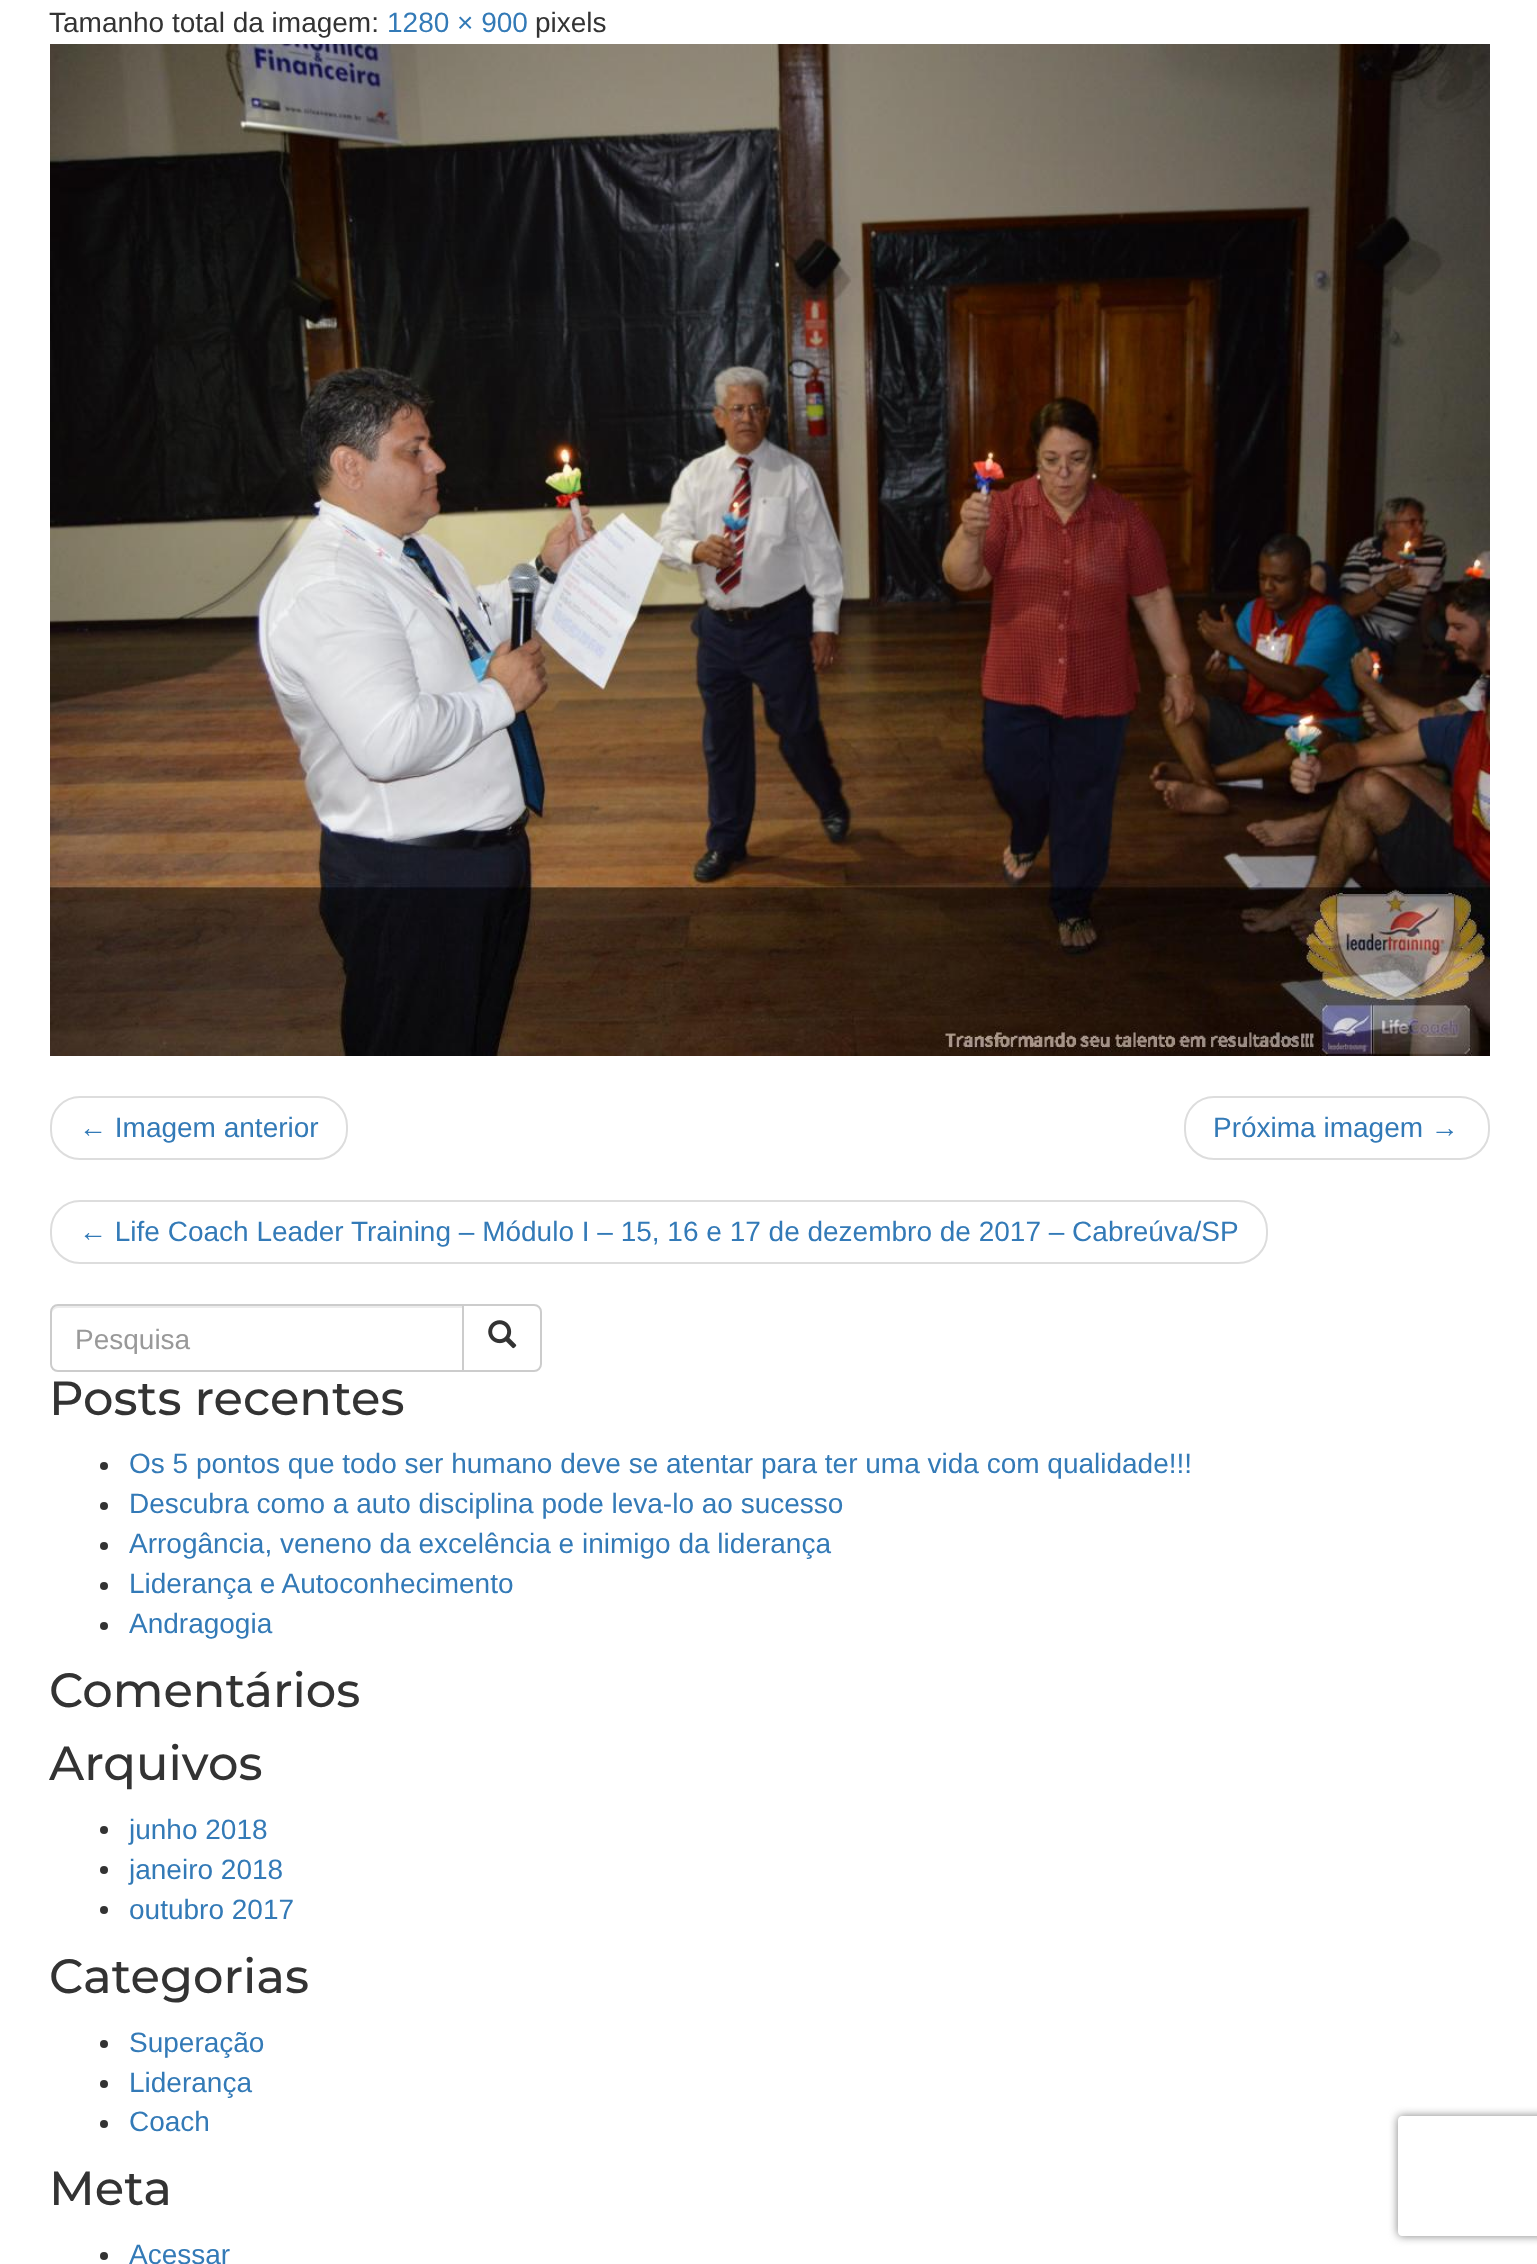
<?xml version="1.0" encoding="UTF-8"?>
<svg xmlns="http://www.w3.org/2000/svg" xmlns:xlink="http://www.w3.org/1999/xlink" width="1537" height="2264">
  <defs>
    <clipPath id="clip1"><path d="M 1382 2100 h 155 v 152 h -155 z m 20 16 h 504 c 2 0 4 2 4 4 v 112 c 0 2 -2 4 -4 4 h -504 c -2 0 -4 -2 -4 -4 v -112 c 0 -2 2 -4 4 -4 z" clip-rule="evenodd" /></clipPath>
    <clipPath id="clip2"><rect x="76" y="1322" width="354" height="32" /></clipPath>
  </defs>
  <rect width="100%" height="100%" fill="#ffffff" />
  <image x="50" y="44" width="1440" height="1012" xlink:href="image1.png" />
  <rect x="51" y="1097" width="296" height="62" rx="29" fill="none" stroke="#dddddd" stroke-width="2" />
  <rect x="1185" y="1097" width="304" height="62" rx="29" fill="none" stroke="#dddddd" stroke-width="2" />
  <rect x="51" y="1201" width="1216" height="62" rx="29" fill="none" stroke="#dddddd" stroke-width="2" />
  <path d="M 58 1308 h 404 v -2 h -404 c -3 0 -6 3 -6 6 v 2 c 0 -3 3 -6 6 -6 z" fill="#ececec" />
  <path d="M 58 1305 h 405 v 66 h -405 c -4 0 -7 -3 -7 -7 v -52 c 0 -4 3 -7 7 -7 z" fill="none" stroke="#cccccc" stroke-width="2" />
  <path d="M 463 1305 h 71 c 4 0 7 3 7 7 v 52 c 0 4 -3 7 -7 7 h -71 z" fill="#ffffff" stroke="#cccccc" stroke-width="2" />
  <image x="488" y="1320" width="29" height="29" xlink:href="image2.png" />
  <circle cx="104" cy="1466" r="4" fill="#333333" />
  <circle cx="104" cy="1506" r="4" fill="#333333" />
  <circle cx="104" cy="1546" r="4" fill="#333333" />
  <circle cx="104" cy="1586" r="4" fill="#333333" />
  <circle cx="104" cy="1626" r="4" fill="#333333" />
  <circle cx="104" cy="1830" r="4" fill="#333333" />
  <circle cx="104" cy="1870" r="4" fill="#333333" />
  <circle cx="104" cy="1910" r="4" fill="#333333" />
  <circle cx="104" cy="2044" r="4" fill="#333333" />
  <circle cx="104" cy="2084" r="4" fill="#333333" />
  <circle cx="104" cy="2124" r="4" fill="#333333" />
  <circle cx="104" cy="2256" r="4" fill="#333333" />
  <g clip-path="url(#clip1)">
    <rect x="1398" y="2116" width="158" height="120" rx="4" fill="#808080" filter="blur(5px)" />
  </g>
  <text x="49" y="32" style="font-family: Liberation Sans; font-size: 28px; fill: #333333">Tamanho total da imagem:</text>
  <text x="387" y="32" style="font-family: Liberation Sans; font-size: 28px; fill: #337ab7">1280 × 900</text>
  <text x="535" y="32" style="font-family: Liberation Sans; font-size: 28px; fill: #333333">pixels</text>
  <text x="79" y="1137" style="font-family: Liberation Sans; font-size: 28px; fill: #337ab7">← Imagem anterior</text>
  <text x="1213" y="1137" style="font-family: Liberation Sans; font-size: 28px; fill: #337ab7">Próxima imagem →</text>
  <text x="79" y="1241" style="font-family: Liberation Sans; font-size: 28px; fill: #337ab7">← Life Coach Leader Training – Módulo I – 15, 16 e 17 de dezembro de 2017 – Cabreúva/SP</text>
  <g clip-path="url(#clip2)">
    <text x="75" y="1349" style="font-family: Liberation Sans; font-size: 28px; fill: #999999">Pesquisa</text>
  </g>
  <text x="49" y="1415" style="font-family: Montserrat; font-size: 48px; font-weight: 500; fill: #333333">Posts recentes</text>
  <text x="129" y="1473" style="font-family: Liberation Sans; font-size: 28px; fill: #337ab7">Os 5 pontos que todo ser humano deve se atentar para ter uma vida com qualidade!!!</text>
  <text x="129" y="1513" style="font-family: Liberation Sans; font-size: 28px; fill: #337ab7">Descubra como a auto disciplina pode leva-lo ao sucesso</text>
  <text x="129" y="1553" style="font-family: Liberation Sans; font-size: 28px; fill: #337ab7">Arrogância, veneno da excelência e inimigo da liderança</text>
  <text x="129" y="1593" style="font-family: Liberation Sans; font-size: 28px; fill: #337ab7">Liderança e Autoconhecimento</text>
  <text x="129" y="1633" style="font-family: Liberation Sans; font-size: 28px; fill: #337ab7">Andragogia</text>
  <text x="49" y="1707" style="font-family: Montserrat; font-size: 48px; font-weight: 500; fill: #333333">Comentários</text>
  <text x="49" y="1780" style="font-family: Montserrat; font-size: 48px; font-weight: 500; fill: #333333">Arquivos</text>
  <text x="129" y="1839" style="font-family: Liberation Sans; font-size: 28px; fill: #337ab7">junho 2018</text>
  <text x="129" y="1879" style="font-family: Liberation Sans; font-size: 28px; fill: #337ab7">janeiro 2018</text>
  <text x="129" y="1919" style="font-family: Liberation Sans; font-size: 28px; fill: #337ab7">outubro 2017</text>
  <text x="49" y="1993" style="font-family: Montserrat; font-size: 48px; font-weight: 500; fill: #333333">Categorias</text>
  <text x="129" y="2052" style="font-family: Liberation Sans; font-size: 28px; fill: #337ab7">Superação</text>
  <text x="129" y="2092" style="font-family: Liberation Sans; font-size: 28px; fill: #337ab7">Liderança</text>
  <text x="129" y="2131" style="font-family: Liberation Sans; font-size: 28px; fill: #337ab7">Coach</text>
  <text x="49" y="2205" style="font-family: Montserrat; font-size: 48px; font-weight: 500; fill: #333333">Meta</text>
  <text x="129" y="2264" style="font-family: Liberation Sans; font-size: 28px; fill: #337ab7">Acessar</text>
</svg>
